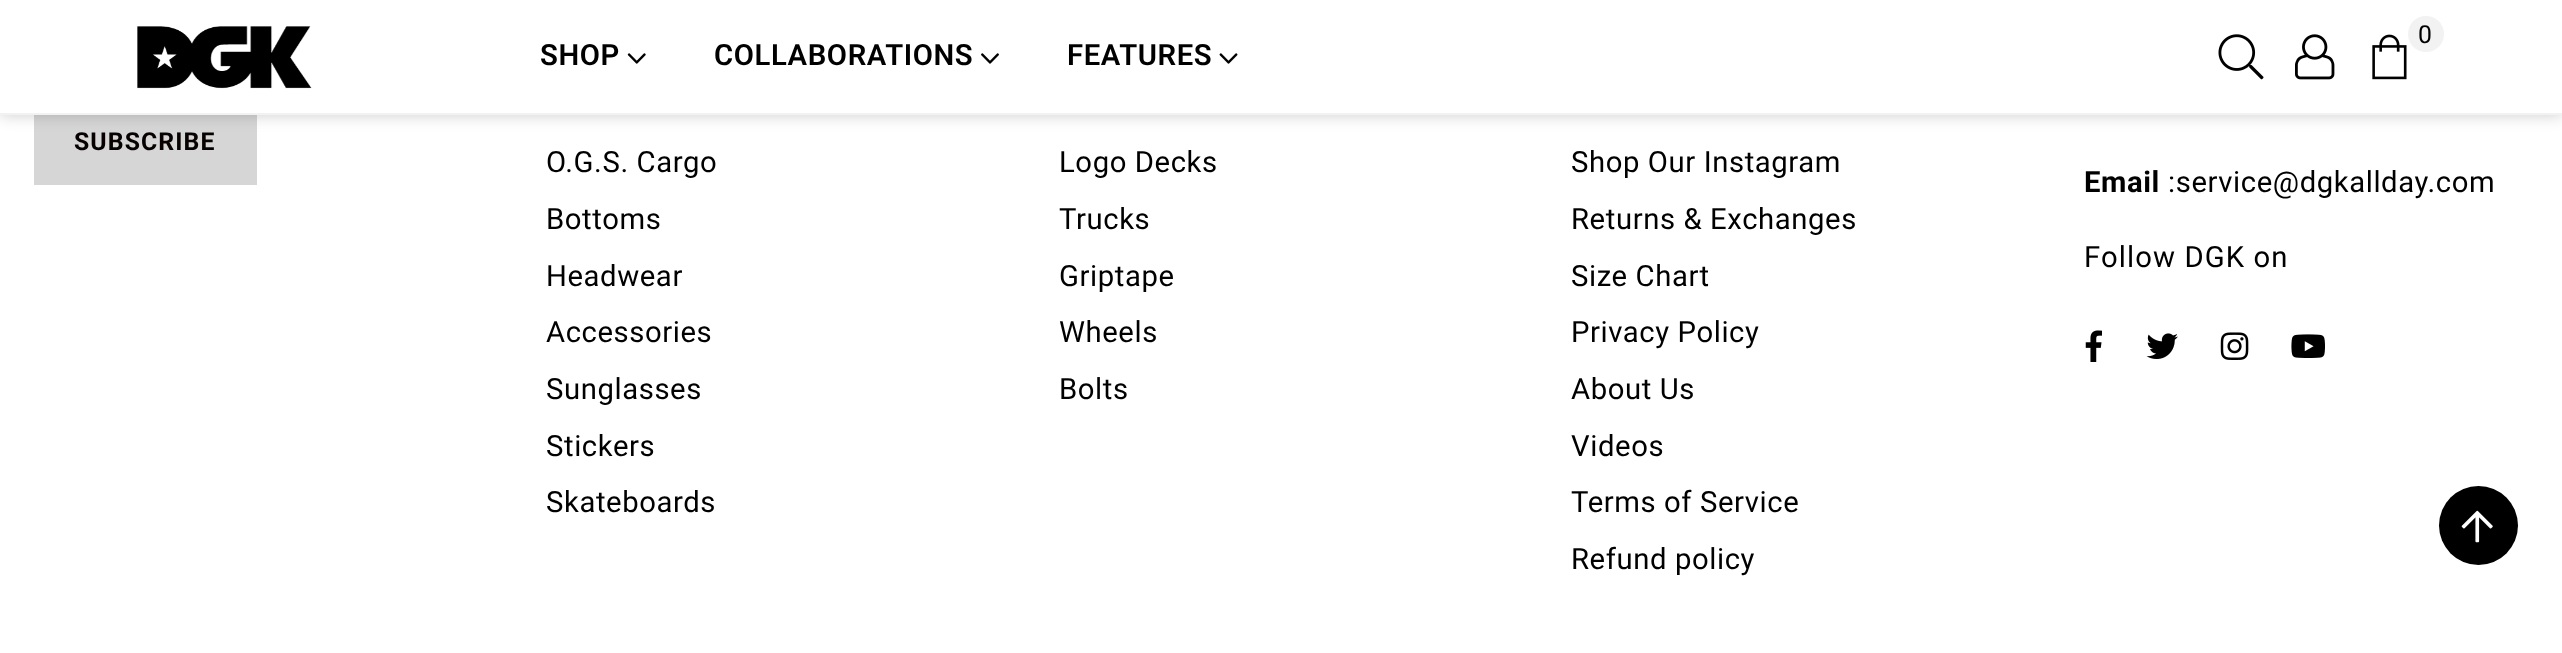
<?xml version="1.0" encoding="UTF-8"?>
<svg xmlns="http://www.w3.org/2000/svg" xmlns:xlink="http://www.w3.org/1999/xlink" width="2562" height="653">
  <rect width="100%" height="100%" fill="#ffffff" />
  <rect x="34" y="115" width="223" height="70" fill="#d6d6d6" />
  <rect width="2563" height="115" fill="#000000" fill-opacity="0.2" filter="blur(8px)" />
  <rect width="2562" height="113" fill="#ffffff" />
  <rect y="113" width="2562" height="2" fill="#f2f2f2" />
  <image x="137" y="26" width="175" height="63" xlink:href="image1.png" />
  <image x="627" y="53" width="19" height="11" xlink:href="image2.png" />
  <image x="981" y="53" width="18" height="11" xlink:href="image3.png" />
  <image x="1219" y="53" width="19" height="11" xlink:href="image4.png" />
  <image x="2218" y="34" width="46" height="46" xlink:href="image5.png" />
  <image x="2295" y="34" width="40" height="46" xlink:href="image6.png" />
  <image x="2372" y="34" width="35" height="46" xlink:href="image7.png" />
  <circle cx="2426" cy="34" r="18" fill="#f2f2f2" />
  <image x="2085" y="330" width="17" height="32" xlink:href="image8.png" />
  <image x="2146" y="333" width="32" height="26" xlink:href="image9.png" />
  <image x="2220" y="332" width="29" height="28" xlink:href="image10.png" />
  <image x="2291" y="334" width="34" height="24" xlink:href="image11.png" />
  <circle cx="2478.5" cy="525.5" r="39.5" fill="#000000" />
  <image x="2461" y="510" width="32" height="33" xlink:href="image12.png" />
  <text x="540" y="65" style="font-family: Roboto; font-size: 29.25px; font-weight: 600; letter-spacing: 0.6px; fill: #000000">SHOP</text>
  <text x="714" y="65" style="font-family: Roboto; font-size: 29.25px; font-weight: 600; letter-spacing: 0.6px; fill: #000000">COLLABORATIONS</text>
  <text x="1067" y="65" style="font-family: Roboto; font-size: 29.25px; font-weight: 600; letter-spacing: 0.6px; fill: #000000">FEATURES</text>
  <text x="2418" y="43" style="font-family: Roboto; font-size: 24.75px; letter-spacing: 0.6px; fill: #000000">0</text>
  <text x="74" y="150" style="font-family: Roboto; font-size: 24.75px; font-weight: bold; letter-spacing: 1.1px; fill: #080101">SUBSCRIBE</text>
  <text x="546" y="172" style="font-family: Roboto; font-size: 29.25px; letter-spacing: 0.6px; fill: #000000">O.G.S. Cargo</text>
  <text x="546" y="229" style="font-family: Roboto; font-size: 29.25px; letter-spacing: 0.6px; fill: #000000">Bottoms</text>
  <text x="546" y="286" style="font-family: Roboto; font-size: 29.25px; letter-spacing: 0.6px; fill: #000000">Headwear</text>
  <text x="546" y="342" style="font-family: Roboto; font-size: 29.25px; letter-spacing: 0.6px; fill: #000000">Accessories</text>
  <text x="546" y="399" style="font-family: Roboto; font-size: 29.25px; letter-spacing: 0.6px; fill: #000000">Sunglasses</text>
  <text x="546" y="456" style="font-family: Roboto; font-size: 29.25px; letter-spacing: 0.6px; fill: #000000">Stickers</text>
  <text x="546" y="512" style="font-family: Roboto; font-size: 29.25px; letter-spacing: 0.6px; fill: #000000">Skateboards</text>
  <text x="1059" y="172" style="font-family: Roboto; font-size: 29.25px; letter-spacing: 0.6px; fill: #000000">Logo Decks</text>
  <text x="1059" y="229" style="font-family: Roboto; font-size: 29.25px; letter-spacing: 0.6px; fill: #000000">Trucks</text>
  <text x="1059" y="286" style="font-family: Roboto; font-size: 29.25px; letter-spacing: 0.6px; fill: #000000">Griptape</text>
  <text x="1059" y="342" style="font-family: Roboto; font-size: 29.25px; letter-spacing: 0.6px; fill: #000000">Wheels</text>
  <text x="1059" y="399" style="font-family: Roboto; font-size: 29.25px; letter-spacing: 0.6px; fill: #000000">Bolts</text>
  <text x="1571" y="172" style="font-family: Roboto; font-size: 29.25px; letter-spacing: 0.6px; fill: #000000">Shop Our Instagram</text>
  <text x="1571" y="229" style="font-family: Roboto; font-size: 29.25px; letter-spacing: 0.6px; fill: #000000">Returns &amp; Exchanges</text>
  <text x="1571" y="286" style="font-family: Roboto; font-size: 29.25px; letter-spacing: 0.6px; fill: #000000">Size Chart</text>
  <text x="1571" y="342" style="font-family: Roboto; font-size: 29.25px; letter-spacing: 0.6px; fill: #000000">Privacy Policy</text>
  <text x="1571" y="399" style="font-family: Roboto; font-size: 29.25px; letter-spacing: 0.6px; fill: #000000">About Us</text>
  <text x="1571" y="456" style="font-family: Roboto; font-size: 29.25px; letter-spacing: 0.6px; fill: #000000">Videos</text>
  <text x="1571" y="512" style="font-family: Roboto; font-size: 29.25px; letter-spacing: 0.6px; fill: #000000">Terms of Service</text>
  <text x="1571" y="569" style="font-family: Roboto; font-size: 29.25px; letter-spacing: 0.6px; fill: #000000">Refund policy</text>
  <text x="2084" y="192" style="font-family: Roboto; font-size: 29.25px; font-weight: bold; letter-spacing: 0.6px; fill: #000000">Email</text>
  <text x="2168" y="192" style="font-family: Roboto; font-size: 29.25px; letter-spacing: 0.6px; fill: #000000">:service@dgkallday.com</text>
  <text x="2084" y="267" style="font-family: Roboto; font-size: 29.25px; letter-spacing: 1.1px; fill: #000000">Follow DGK on</text>
</svg>
